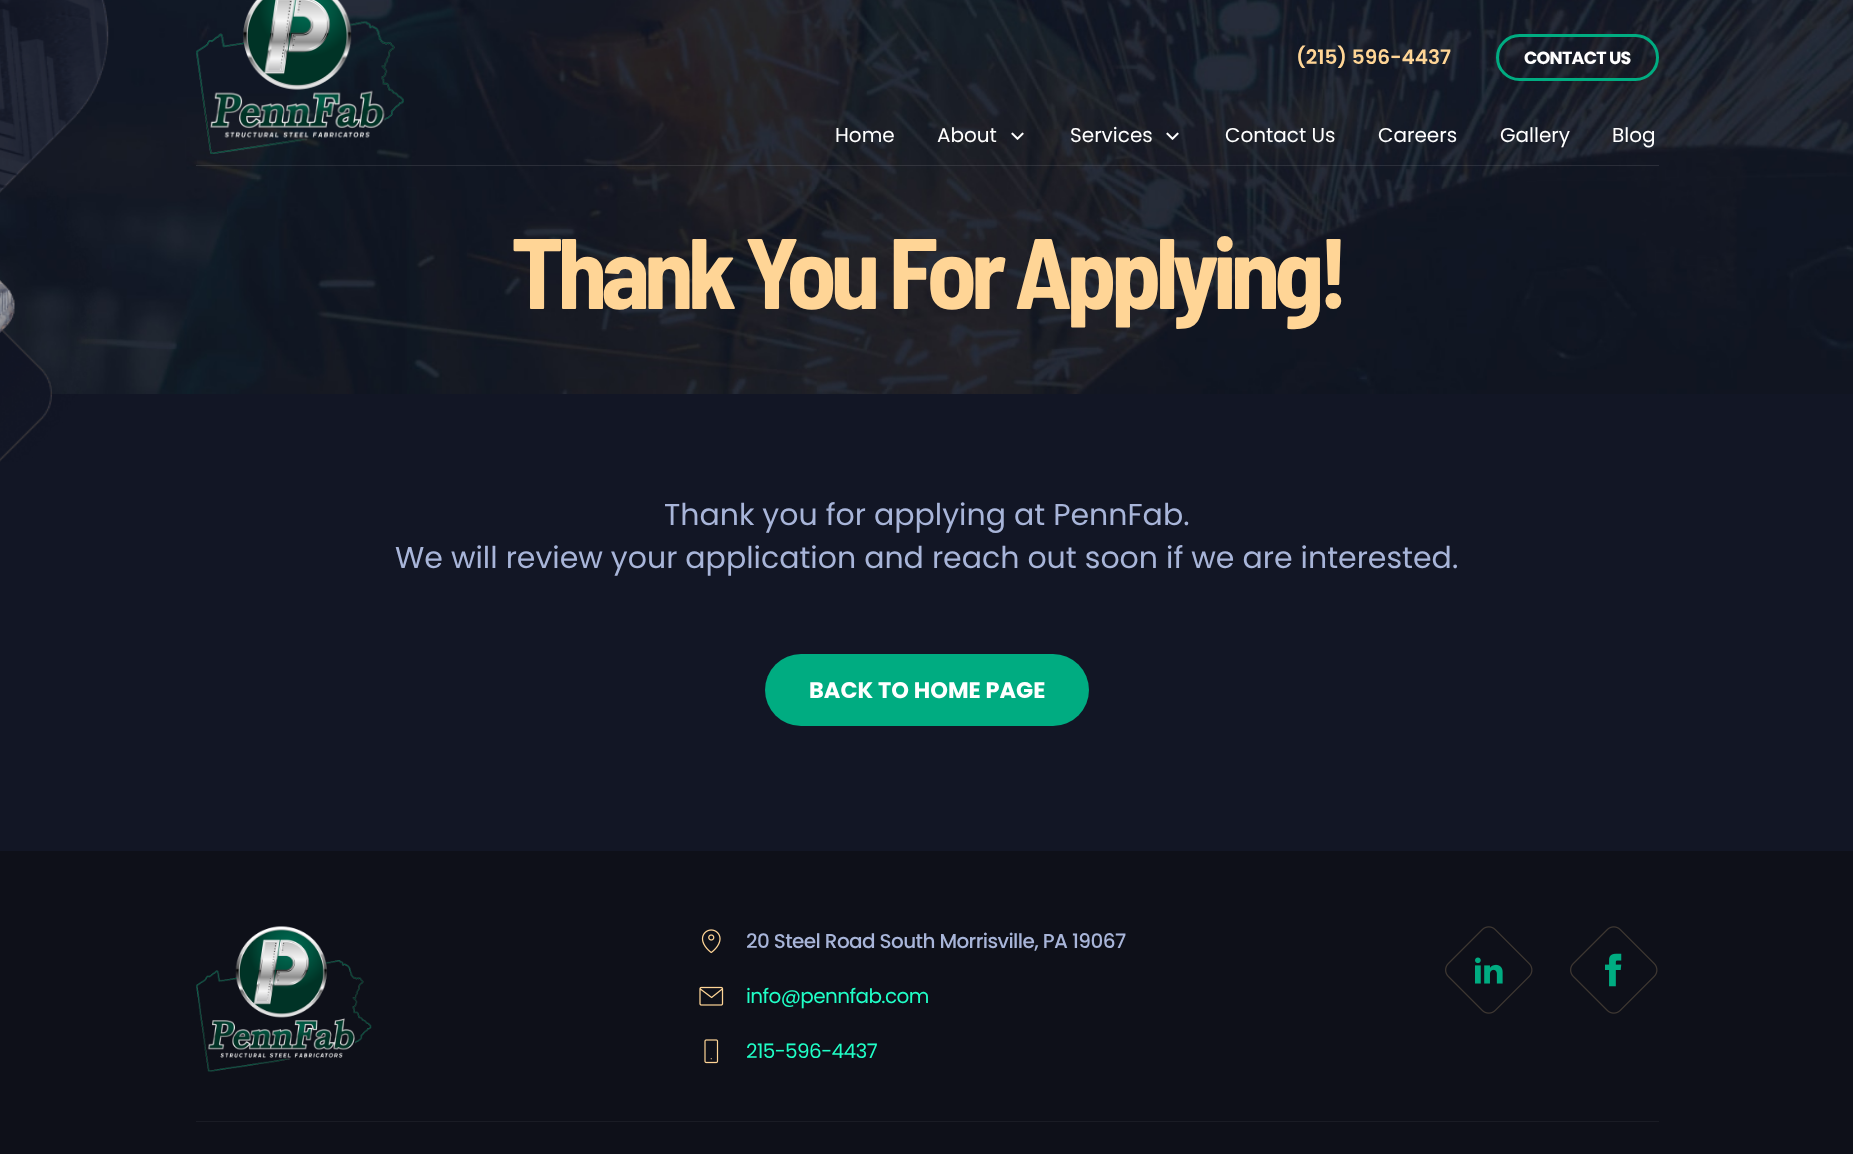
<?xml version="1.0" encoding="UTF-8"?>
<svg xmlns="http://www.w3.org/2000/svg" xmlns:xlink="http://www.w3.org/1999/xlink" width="1853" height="1154">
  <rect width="100%" height="100%" fill="#0e1019" />
  <image x="0" y="0" width="1853" height="394" xlink:href="image5.png" />
  <image x="196" y="0" width="208" height="154" xlink:href="image1.png" />
  <rect x="1497.5" y="35.5" width="160" height="44" rx="22" fill="none" stroke="#00ac81" stroke-width="3" />
  <image x="1011" y="132" width="13" height="8" xlink:href="image2.png" />
  <image x="1166" y="132" width="13" height="8" xlink:href="image3.png" />
  <rect x="196" y="165" width="1463" height="1" fill="#ffffff" fill-opacity="0.1" />
  <rect y="394" width="1853" height="457" fill="#121625" />
  <image x="0" y="0" width="109" height="462" xlink:href="image4.png" />
  <rect x="765" y="654" width="324" height="72" rx="36" fill="#00ac81" />
  <rect x="196" y="1121" width="1463" height="1" fill="#1a1c25" />
  <image x="196" y="926" width="176" height="146" xlink:href="image6.png" />
  <image x="701" y="929" width="20" height="25" xlink:href="image7.png" />
  <image x="699" y="986" width="25" height="20" xlink:href="image8.png" />
  <image x="704" y="1039" width="15" height="25" xlink:href="image9.png" />
  <image x="1445" y="926" width="88" height="88" xlink:href="image10.png" />
  <image x="1570" y="926" width="88" height="88" xlink:href="image11.png" />
  <text x="1296" y="64" style="font-family: Poppins; font-size: 20px; font-weight: 600; fill: #ffd596">(215) 596-4437</text>
  <text x="1524" y="64" style="font-family: Poppins; font-size: 17.5px; font-weight: bold; letter-spacing: -0.75px; fill: #ffffff">CONTACT US</text>
  <text x="835" y="142" style="font-family: Poppins; font-size: 20px; fill: #ffffff">Home</text>
  <text x="937" y="142" style="font-family: Poppins; font-size: 20px; fill: #ffffff">About</text>
  <text x="1070" y="142" style="font-family: Poppins; font-size: 20px; fill: #ffffff">Services</text>
  <text x="1225" y="142" style="font-family: Poppins; font-size: 20px; fill: #ffffff">Contact Us</text>
  <text x="1378" y="142" style="font-family: Poppins; font-size: 20px; fill: #ffffff">Careers</text>
  <text x="1500" y="142" style="font-family: Poppins; font-size: 20px; fill: #ffffff">Gallery</text>
  <text x="1612" y="142" style="font-family: Poppins; font-size: 20px; fill: #ffffff">Blog</text>
  <text x="511" y="309" style="font-family: Barlow Semi Condensed; font-size: 100px; font-weight: bold; letter-spacing: -6px; fill: #ffd596">Thank You For Applying!</text>
  <text x="664" y="525" style="font-family: Poppins; font-size: 30px; fill: #a8b5d9">Thank you for applying at PennFab.</text>
  <text x="395" y="568" style="font-family: Poppins; font-size: 30px; fill: #a8b5d9">We will review your application and reach out soon if we are interested.</text>
  <text x="809" y="698" style="font-family: Poppins; font-size: 22.5px; font-weight: bold; fill: #ffffff">BACK TO HOME PAGE</text>
  <text x="746" y="948" style="font-family: Poppins; font-size: 20px; font-weight: 500; letter-spacing: -0.6px; fill: #a8b5d9">20 Steel Road South Morrisville, PA 19067</text>
  <text x="746" y="1003" style="font-family: Poppins; font-size: 20px; letter-spacing: -0.6px; fill: #20ffc7">info@pennfab.com</text>
  <text x="746" y="1058" style="font-family: Poppins; font-size: 20px; letter-spacing: -0.6px; fill: #20ffc7">215-596-4437</text>
</svg>
